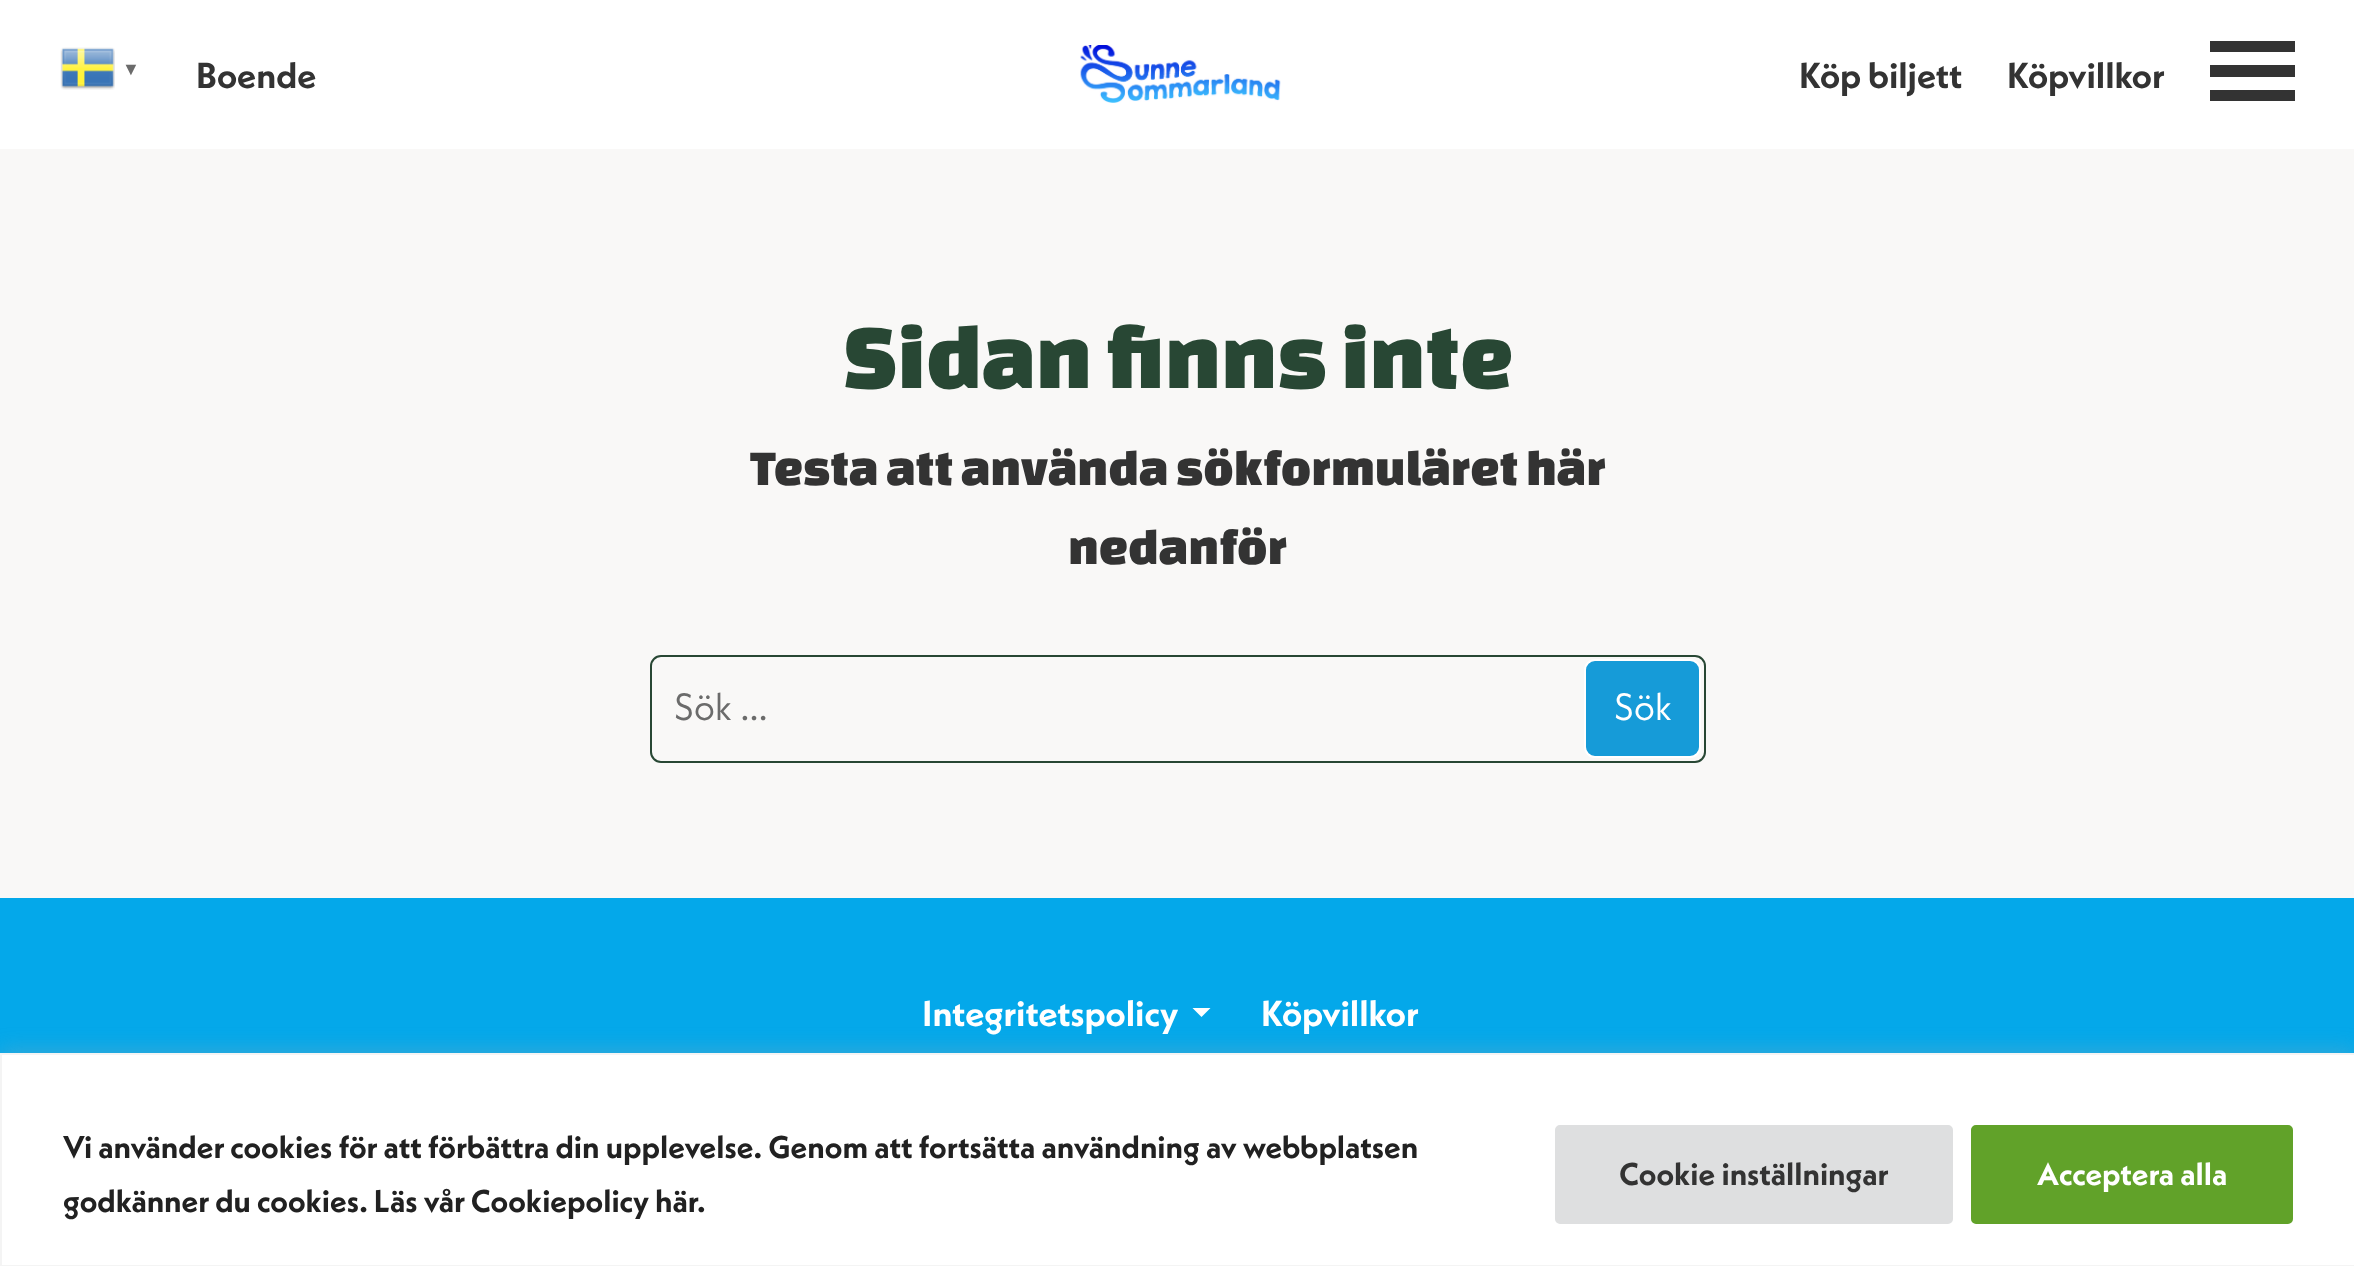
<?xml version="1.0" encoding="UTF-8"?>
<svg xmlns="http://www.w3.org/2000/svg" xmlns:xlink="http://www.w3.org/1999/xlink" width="2354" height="1266">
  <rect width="100%" height="100%" fill="#f9f8f7" />
  <rect width="2354" height="149" fill="#ffffff" />
  <image x="60" y="47" width="55" height="43" xlink:href="image1.png" />
  <image x="1080" y="45" width="201" height="58" xlink:href="image2.png" />
  <rect x="2210" y="41" width="85" height="11" fill="#333333" />
  <rect x="2210" y="65" width="85" height="12" fill="#333333" />
  <rect x="2210" y="90" width="85" height="11" fill="#333333" />
  <rect x="651" y="656" width="1054" height="106" rx="10" fill="none" stroke="#284734" stroke-width="2" />
  <rect x="1585" y="660" width="115" height="97" rx="10" fill="#169bd8" stroke="#ffffff" stroke-width="2" />
  <rect y="898" width="2354" height="155" fill="#04a8ea" />
  <path d="M 1192.5 1008 h 18 l -9 9 z" fill="#ffffff" />
  <rect y="1051" width="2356" height="214" fill="#acabab" fill-opacity="0.3" filter="blur(11px)" />
  <rect x="1" y="1054" width="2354" height="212" fill="#ffffff" stroke="#f4f4f4" stroke-width="2" />
  <rect x="1557.5" y="1127.5" width="393" height="94" rx="2.5" fill="#dedfe0" stroke="#dedfe0" stroke-width="5" />
  <rect x="1973.5" y="1127.5" width="317" height="94" rx="2.5" fill="#61a229" stroke="#61a229" stroke-width="5" />
  <text x="122" y="75" style="font-family: Liberation Serif; font-size: 18px; font-weight: bold; fill: #6b6b6b">▼</text>
  <text x="196" y="88" style="font-family: 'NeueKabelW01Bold'; font-size: 36px; font-weight: bold; fill: #333333">Boende</text>
  <text x="1799" y="88" style="font-family: 'NeueKabelW01Bold'; font-size: 36px; font-weight: bold; fill: #333333">Köp biljett</text>
  <text x="2007" y="88" style="font-family: 'NeueKabelW01Bold'; font-size: 36px; font-weight: bold; fill: #333333">Köpvillkor</text>
  <text x="843" y="388" style="font-family: Changa One; font-size: 94.5px; fill: #284734">Sidan finns inte</text>
  <text x="750" y="485" style="font-family: Changa One; font-size: 51.75px; fill: #333333">Testa att använda sökformuläret här</text>
  <text x="1068" y="564" style="font-family: Changa One; font-size: 51.75px; fill: #333333">nedanför</text>
  <text x="674" y="720" style="font-family: 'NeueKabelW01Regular'; font-size: 38px; fill: #6b6b6b">Sök …</text>
  <text x="1614" y="720" style="font-family: 'NeueKabelW01Regular'; font-size: 38px; fill: #ffffff">Sök</text>
  <text x="922" y="1026" style="font-family: 'NeueKabelW01Bold'; font-size: 36px; font-weight: bold; fill: #ffffff">Integritetspolicy</text>
  <text x="1261" y="1026" style="font-family: 'NeueKabelW01Bold'; font-size: 36px; font-weight: bold; fill: #ffffff">Köpvillkor</text>
  <text x="63" y="1158" style="font-family: 'NeueKabelW01Bold'; font-size: 31.5px; font-weight: bold; fill: #212121">Vi använder cookies för att förbättra din upplevelse. Genom att fortsätta användning av webbplatsen</text>
  <text x="63" y="1212" style="font-family: 'NeueKabelW01Bold'; font-size: 31.5px; font-weight: bold; fill: #212121">godkänner du cookies. Läs vår Cookiepolicy här.</text>
  <text x="1619" y="1185" style="font-family: 'NeueKabelW01Bold'; font-size: 31.5px; font-weight: bold; fill: #333333">Cookie inställningar</text>
  <text x="2037" y="1185" style="font-family: 'NeueKabelW01Bold'; font-size: 31.5px; font-weight: bold; fill: #ffffff">Acceptera alla</text>
</svg>
